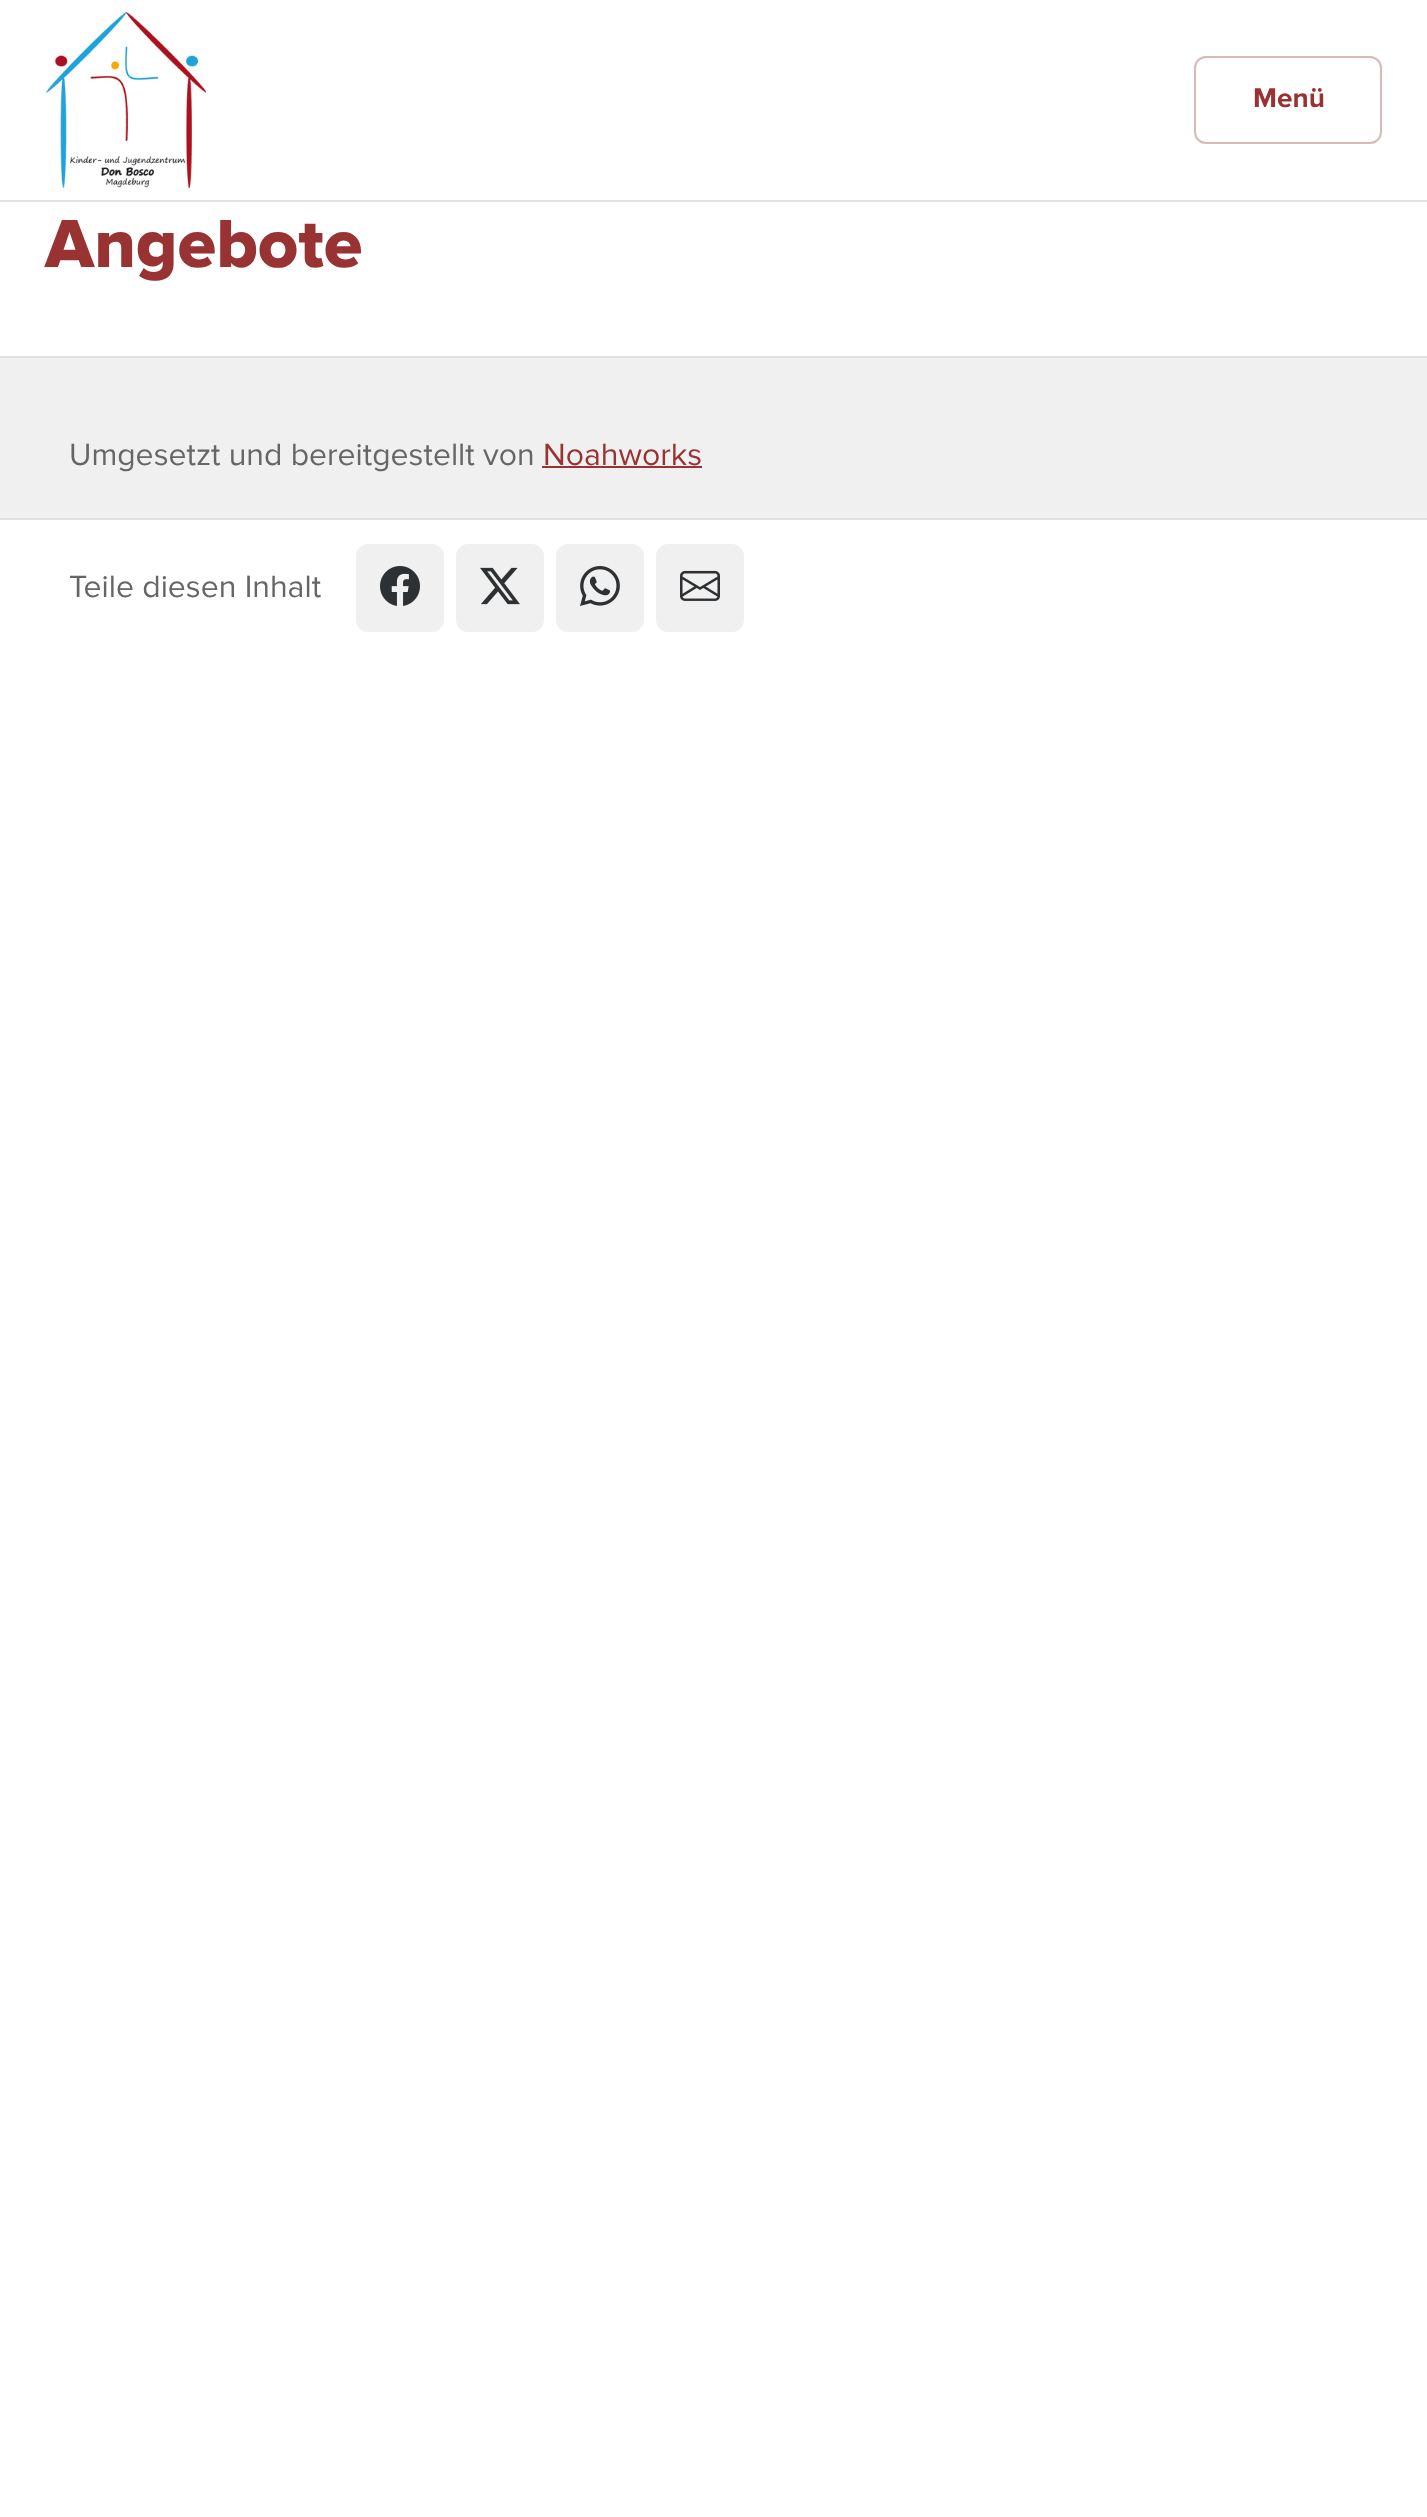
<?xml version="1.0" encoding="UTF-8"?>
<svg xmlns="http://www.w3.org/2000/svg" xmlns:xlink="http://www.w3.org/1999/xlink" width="1427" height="2517">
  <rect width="100%" height="100%" fill="#ffffff" />
  <rect y="200" width="1427" height="2" fill="#dee2e6" />
  <image x="46" y="12" width="160" height="176" xlink:href="image1.png" />
  <rect x="1195" y="57" width="186" height="86" rx="11" fill="none" stroke="#dbb8b8" stroke-width="2" />
  <rect y="358" width="1427" height="160" fill="#f0f0f0" />
  <rect y="356" width="1427" height="2" fill="#dee2e6" />
  <rect x="542" y="466" width="160" height="2" fill="#993333" />
  <rect y="518" width="1427" height="2" fill="#dee2e6" />
  <rect x="357" y="545" width="86" height="86" rx="11" fill="#f0f0f0" stroke="#f0f0f0" stroke-width="2" />
  <image x="380" y="566" width="40" height="40" xlink:href="image2.png" />
  <rect x="457" y="545" width="86" height="86" rx="11" fill="#f0f0f0" stroke="#f0f0f0" stroke-width="2" />
  <image x="480" y="567" width="40" height="38" xlink:href="image3.png" />
  <rect x="557" y="545" width="86" height="86" rx="11" fill="#f0f0f0" stroke="#f0f0f0" stroke-width="2" />
  <image x="580" y="566" width="40" height="40" xlink:href="image4.png" />
  <rect x="657" y="545" width="86" height="86" rx="11" fill="#f0f0f0" stroke="#f0f0f0" stroke-width="2" />
  <image x="680" y="570" width="40" height="31" xlink:href="image5.png" />
  <text x="1253" y="107" style="font-family: Proxima Nova; font-size: 28px; font-weight: bold; fill: #993333">Menü</text>
  <text x="45" y="267" style="font-family: Proxima Nova; font-size: 70.5px; font-weight: 800; fill: #993333">Angebote</text>
  <text x="69" y="465" style="font-family: Proxima Nova; font-size: 32px; fill: #666666">Umgesetzt und bereitgestellt von</text>
  <text x="543" y="465" style="font-family: Proxima Nova; font-size: 32px; fill: #993333">Noahworks</text>
  <text x="69" y="597" style="font-family: Proxima Nova; font-size: 32px; fill: #666666">Teile diesen Inhalt</text>
</svg>
